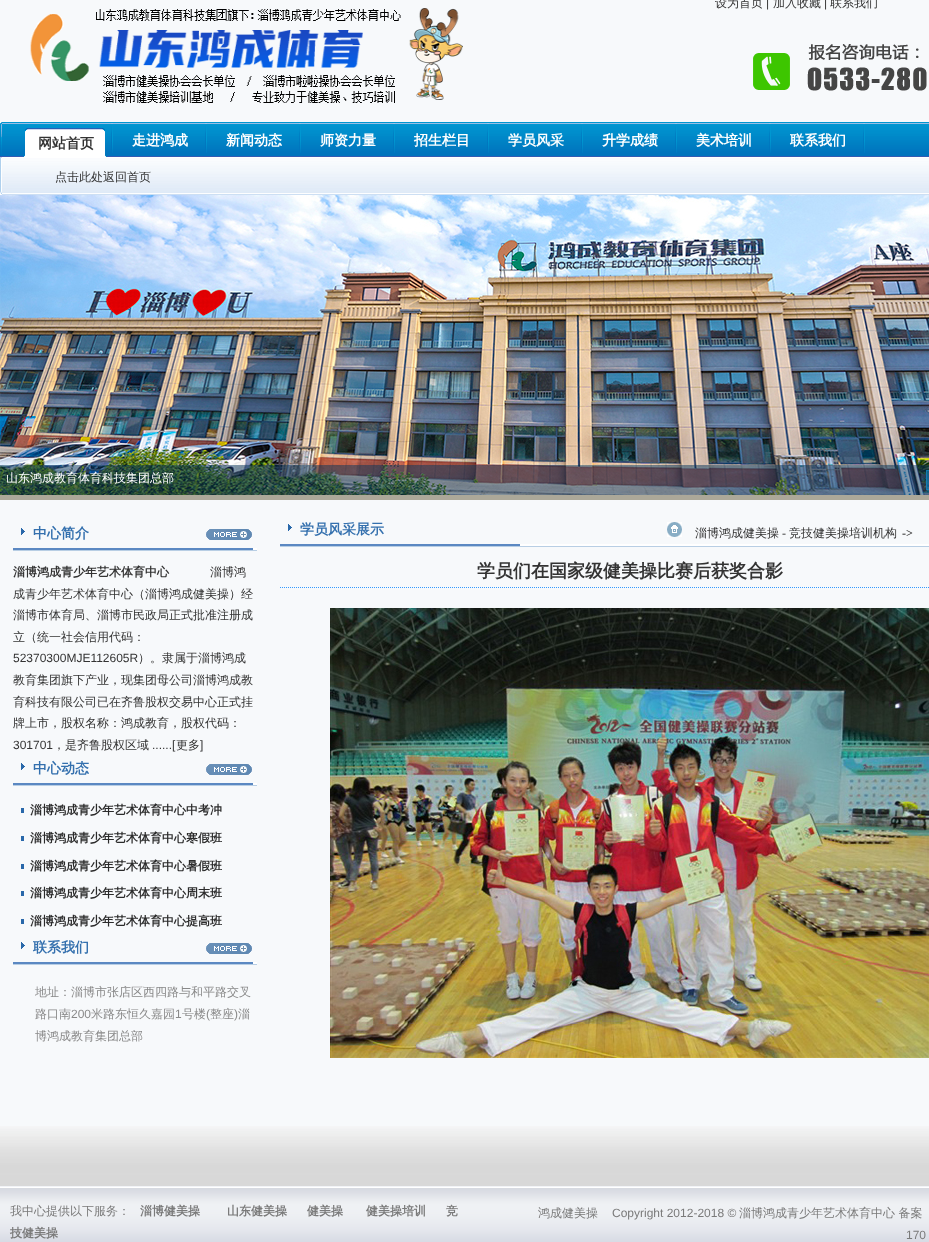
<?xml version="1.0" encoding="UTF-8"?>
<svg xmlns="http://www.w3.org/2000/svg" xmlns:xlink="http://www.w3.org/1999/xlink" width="929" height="1242">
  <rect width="100%" height="100%" fill="#f7f9fb" />
  <image x="0" y="1186" width="929" height="1" xlink:href="image1.png" />
  <image x="30" y="8" width="433" height="95" xlink:href="image2.png" />
  <image x="753" y="44" width="174" height="47" xlink:href="image3.png" />
  <image x="0" y="122" width="2" height="73" xlink:href="image4.png" />
  <image x="2" y="122" width="927" height="73" xlink:href="image5.png" />
  <image x="23" y="128" width="5" height="29" xlink:href="image6.png" />
  <image x="28" y="128" width="79" height="29" xlink:href="image7.png" />
  <image x="111" y="123" width="2" height="30" xlink:href="image8.png" />
  <image x="205" y="123" width="2" height="30" xlink:href="image8.png" />
  <image x="299" y="123" width="2" height="30" xlink:href="image8.png" />
  <image x="393" y="123" width="2" height="30" xlink:href="image8.png" />
  <image x="487" y="123" width="2" height="30" xlink:href="image8.png" />
  <image x="581" y="123" width="2" height="30" xlink:href="image8.png" />
  <image x="675" y="123" width="2" height="30" xlink:href="image8.png" />
  <image x="769" y="123" width="2" height="30" xlink:href="image8.png" />
  <image x="863" y="123" width="2" height="30" xlink:href="image8.png" />
  <image x="0" y="195" width="929" height="300" xlink:href="image9.png" />
  <rect y="465" width="929" height="30" fill="#08355c" fill-opacity="0.5" />
  <rect x="926" y="470" width="3" height="20" fill="#1072aa" fill-opacity="0.7" />
  <rect x="926.5" y="470.5" width="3" height="19" fill="none" stroke="#1188c0" stroke-opacity="0.7" />
  <rect y="495" width="929" height="5" fill="#aca899" />
  <image x="0" y="1126" width="257" height="60" xlink:href="image10.png" />
  <image x="13" y="548" width="244" height="3" xlink:href="image11.png" />
  <image x="21" y="528" width="4" height="7" xlink:href="image12.png" />
  <image x="206" y="529" width="46" height="11" xlink:href="image13.png" />
  <image x="13" y="783" width="244" height="3" xlink:href="image11.png" />
  <image x="21" y="763" width="4" height="7" xlink:href="image12.png" />
  <image x="206" y="764" width="46" height="11" xlink:href="image13.png" />
  <rect x="21" y="808" width="3" height="5" fill="#2968aa" />
  <rect x="21" y="836" width="3" height="5" fill="#2968aa" />
  <rect x="21" y="864" width="3" height="5" fill="#2968aa" />
  <rect x="21" y="891" width="3" height="5" fill="#2968aa" />
  <rect x="21" y="919" width="3" height="5" fill="#2968aa" />
  <image x="13" y="962" width="244" height="3" xlink:href="image11.png" />
  <image x="21" y="942" width="4" height="7" xlink:href="image12.png" />
  <image x="206" y="943" width="46" height="11" xlink:href="image13.png" />
  <image x="257" y="1126" width="672" height="60" xlink:href="image14.png" />
  <image x="280" y="544" width="649" height="3" xlink:href="image15.png" />
  <image x="288" y="524" width="4" height="7" xlink:href="image12.png" />
  <image x="667" y="522" width="15" height="15" xlink:href="image16.png" />
  <path d="M 280 587.5 h 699" fill="none" stroke="#3399ff" stroke-dasharray="1 1" />
  <image x="330" y="608" width="599" height="450" xlink:href="image17.png" />
  <image x="0" y="1188" width="929" height="54" xlink:href="image18.png" />
  <rect y="1187" width="929" height="1" fill="#ffffff" />
  <text x="715" y="7" style="font-family: WenQuanYi Zen Hei; font-size: 12px; font-weight: 500; fill: #333333">设为首页</text>
  <text x="766" y="7" style="font-family: Liberation Sans; font-size: 12px; fill: #333333">|</text>
  <text x="773" y="7" style="font-family: WenQuanYi Zen Hei; font-size: 12px; font-weight: 500; fill: #333333">加入收藏</text>
  <text x="824" y="7" style="font-family: Liberation Sans; font-size: 12px; fill: #333333">|</text>
  <text x="830" y="7" style="font-family: WenQuanYi Zen Hei; font-size: 12px; font-weight: 500; fill: #333333">联系我们</text>
  <text x="38" y="148" style="font-family: WenQuanYi Zen Hei; font-size: 14px; font-weight: bold; fill: #333333">网站首页</text>
  <text x="132" y="145" style="font-family: WenQuanYi Zen Hei; font-size: 14px; font-weight: bold; fill: #ffffff">走进鸿成</text>
  <text x="226" y="145" style="font-family: WenQuanYi Zen Hei; font-size: 14px; font-weight: bold; fill: #ffffff">新闻动态</text>
  <text x="320" y="145" style="font-family: WenQuanYi Zen Hei; font-size: 14px; font-weight: bold; fill: #ffffff">师资力量</text>
  <text x="414" y="145" style="font-family: WenQuanYi Zen Hei; font-size: 14px; font-weight: bold; fill: #ffffff">招生栏目</text>
  <text x="508" y="145" style="font-family: WenQuanYi Zen Hei; font-size: 14px; font-weight: bold; fill: #ffffff">学员风采</text>
  <text x="602" y="145" style="font-family: WenQuanYi Zen Hei; font-size: 14px; font-weight: bold; fill: #ffffff">升学成绩</text>
  <text x="696" y="145" style="font-family: WenQuanYi Zen Hei; font-size: 14px; font-weight: bold; fill: #ffffff">美术培训</text>
  <text x="790" y="145" style="font-family: WenQuanYi Zen Hei; font-size: 14px; font-weight: bold; fill: #ffffff">联系我们</text>
  <text x="55" y="181" style="font-family: WenQuanYi Zen Hei; font-size: 12px; font-weight: 500; fill: #333333">点击此处返回首页</text>
  <text x="6" y="482" style="font-family: WenQuanYi Zen Hei; font-size: 12px; font-weight: 500; fill: #ffffff">山东鸿成教育体育科技集团总部</text>
  <text x="33" y="538" style="font-family: WenQuanYi Zen Hei; font-size: 14px; font-weight: bold; fill: #3470ae">中心简介</text>
  <text x="13" y="576" style="font-family: WenQuanYi Zen Hei; font-size: 12px; font-weight: bold; fill: #333333">淄博鸿成青少年艺术体育中心</text>
  <text x="210" y="576" style="font-family: WenQuanYi Zen Hei; font-size: 12px; font-weight: 500; fill: #333333">淄博鸿</text>
  <text x="13" y="598" style="font-family: WenQuanYi Zen Hei; font-size: 12px; font-weight: 500; fill: #333333">成青少年艺术体育中心（淄博鸿成健美操）经</text>
  <text x="13" y="619" style="font-family: WenQuanYi Zen Hei; font-size: 12px; font-weight: 500; fill: #333333">淄博市体育局、淄博市民政局正式批准注册成</text>
  <text x="13" y="641" style="font-family: WenQuanYi Zen Hei; font-size: 12px; font-weight: 500; fill: #333333">立（统一社会信用代码：</text>
  <text x="13" y="662" style="font-family: Liberation Sans; font-size: 12px; fill: #333333">52370300MJE112605R</text>
  <text x="138" y="662" style="font-family: WenQuanYi Zen Hei; font-size: 12px; font-weight: 500; fill: #333333">）。隶属于淄博鸿成</text>
  <text x="13" y="684" style="font-family: WenQuanYi Zen Hei; font-size: 12px; font-weight: 500; fill: #333333">教育集团旗下产业，现集团母公司淄博鸿成教</text>
  <text x="13" y="706" style="font-family: WenQuanYi Zen Hei; font-size: 12px; font-weight: 500; fill: #333333">育科技有限公司已在齐鲁股权交易中心正式挂</text>
  <text x="13" y="727" style="font-family: WenQuanYi Zen Hei; font-size: 12px; font-weight: 500; fill: #333333">牌上市，股权名称：鸿成教育，股权代码：</text>
  <text x="13" y="749" style="font-family: Liberation Sans; font-size: 12px; fill: #333333">301701</text>
  <text x="53" y="749" style="font-family: WenQuanYi Zen Hei; font-size: 12px; font-weight: 500; fill: #333333">，是齐鲁股权区域</text>
  <text x="152" y="749" style="font-family: Liberation Sans; font-size: 12px; fill: #333333">......[</text>
  <text x="176" y="749" style="font-family: WenQuanYi Zen Hei; font-size: 12px; font-weight: 500; fill: #333333">更多</text>
  <text x="200" y="749" style="font-family: Liberation Sans; font-size: 12px; fill: #333333">]</text>
  <text x="33" y="773" style="font-family: WenQuanYi Zen Hei; font-size: 14px; font-weight: bold; fill: #3470ae">中心动态</text>
  <text x="30" y="814" style="font-family: WenQuanYi Zen Hei; font-size: 12px; font-weight: bold; fill: #2b2b2b">淄博鸿成青少年艺术体育中心中考冲</text>
  <text x="30" y="842" style="font-family: WenQuanYi Zen Hei; font-size: 12px; font-weight: bold; fill: #2b2b2b">淄博鸿成青少年艺术体育中心寒假班</text>
  <text x="30" y="870" style="font-family: WenQuanYi Zen Hei; font-size: 12px; font-weight: bold; fill: #2b2b2b">淄博鸿成青少年艺术体育中心暑假班</text>
  <text x="30" y="897" style="font-family: WenQuanYi Zen Hei; font-size: 12px; font-weight: bold; fill: #2b2b2b">淄博鸿成青少年艺术体育中心周末班</text>
  <text x="30" y="925" style="font-family: WenQuanYi Zen Hei; font-size: 12px; font-weight: bold; fill: #2b2b2b">淄博鸿成青少年艺术体育中心提高班</text>
  <text x="33" y="952" style="font-family: WenQuanYi Zen Hei; font-size: 14px; font-weight: bold; fill: #3470ae">联系我们</text>
  <text x="35" y="996" style="font-family: WenQuanYi Zen Hei; font-size: 12px; font-weight: 500; fill: #898989">地址：淄博市张店区西四路与和平路交叉</text>
  <text x="35" y="1018" style="font-family: WenQuanYi Zen Hei; font-size: 12px; font-weight: 500; fill: #898989">路口南</text>
  <text x="71" y="1018" style="font-family: Liberation Sans; font-size: 12px; fill: #898989">200</text>
  <text x="91" y="1018" style="font-family: WenQuanYi Zen Hei; font-size: 12px; font-weight: 500; fill: #898989">米路东恒久嘉园</text>
  <text x="175" y="1018" style="font-family: Liberation Sans; font-size: 12px; fill: #898989">1</text>
  <text x="182" y="1018" style="font-family: WenQuanYi Zen Hei; font-size: 12px; font-weight: 500; fill: #898989">号楼</text>
  <text x="206" y="1018" style="font-family: Liberation Sans; font-size: 12px; fill: #898989">(</text>
  <text x="210" y="1018" style="font-family: WenQuanYi Zen Hei; font-size: 12px; font-weight: 500; fill: #898989">整座</text>
  <text x="234" y="1018" style="font-family: Liberation Sans; font-size: 12px; fill: #898989">)</text>
  <text x="238" y="1018" style="font-family: WenQuanYi Zen Hei; font-size: 12px; font-weight: 500; fill: #898989">淄</text>
  <text x="35" y="1040" style="font-family: WenQuanYi Zen Hei; font-size: 12px; font-weight: 500; fill: #898989">博鸿成教育集团总部</text>
  <text x="300" y="534" style="font-family: WenQuanYi Zen Hei; font-size: 14px; font-weight: bold; fill: #3470ae">学员风采展示</text>
  <text x="695" y="537" style="font-family: WenQuanYi Zen Hei; font-size: 12px; font-weight: 500; fill: #333333">淄博鸿成健美操</text>
  <text x="782" y="537" style="font-family: Liberation Serif; font-size: 12px; fill: #333333">-</text>
  <text x="789" y="537" style="font-family: WenQuanYi Zen Hei; font-size: 12px; font-weight: 500; fill: #333333">竞技健美操培训机构</text>
  <text x="902" y="537" style="font-family: Liberation Serif; font-size: 12px; font-weight: bold; fill: #333333">-&gt;</text>
  <text x="477" y="577" style="font-family: WenQuanYi Zen Hei; font-size: 18px; font-weight: bold; fill: #333333">学员们在国家级健美操比赛后获奖合影</text>
  <text x="10" y="1215" style="font-family: WenQuanYi Zen Hei; font-size: 12px; font-weight: 500; fill: #7a7a7a">我中心提供以下服务：</text>
  <text x="140" y="1215" style="font-family: WenQuanYi Zen Hei; font-size: 12px; font-weight: bold; fill: #7a7a7a">淄博健美操</text>
  <text x="227" y="1215" style="font-family: WenQuanYi Zen Hei; font-size: 12px; font-weight: bold; fill: #7a7a7a">山东健美操</text>
  <text x="307" y="1215" style="font-family: WenQuanYi Zen Hei; font-size: 12px; font-weight: bold; fill: #7a7a7a">健美操</text>
  <text x="366" y="1215" style="font-family: WenQuanYi Zen Hei; font-size: 12px; font-weight: bold; fill: #7a7a7a">健美操培训</text>
  <text x="446" y="1215" style="font-family: WenQuanYi Zen Hei; font-size: 12px; font-weight: bold; fill: #7a7a7a">竞</text>
  <text x="10" y="1237" style="font-family: WenQuanYi Zen Hei; font-size: 12px; font-weight: bold; fill: #7a7a7a">技健美操</text>
  <text x="538" y="1217" style="font-family: WenQuanYi Zen Hei; font-size: 12px; font-weight: 500; fill: #7a7a7a">鸿成健美操</text>
  <text x="612" y="1217" style="font-family: Liberation Sans; font-size: 12px; fill: #7a7a7a">Copyright 2012-2018 ©</text>
  <text x="739" y="1217" style="font-family: WenQuanYi Zen Hei; font-size: 12px; font-weight: 500; fill: #7a7a7a">淄博鸿成青少年艺术体育中心 备案</text>
  <text x="906" y="1239" style="font-family: Liberation Sans; font-size: 12px; fill: #7a7a7a">170</text>
</svg>
